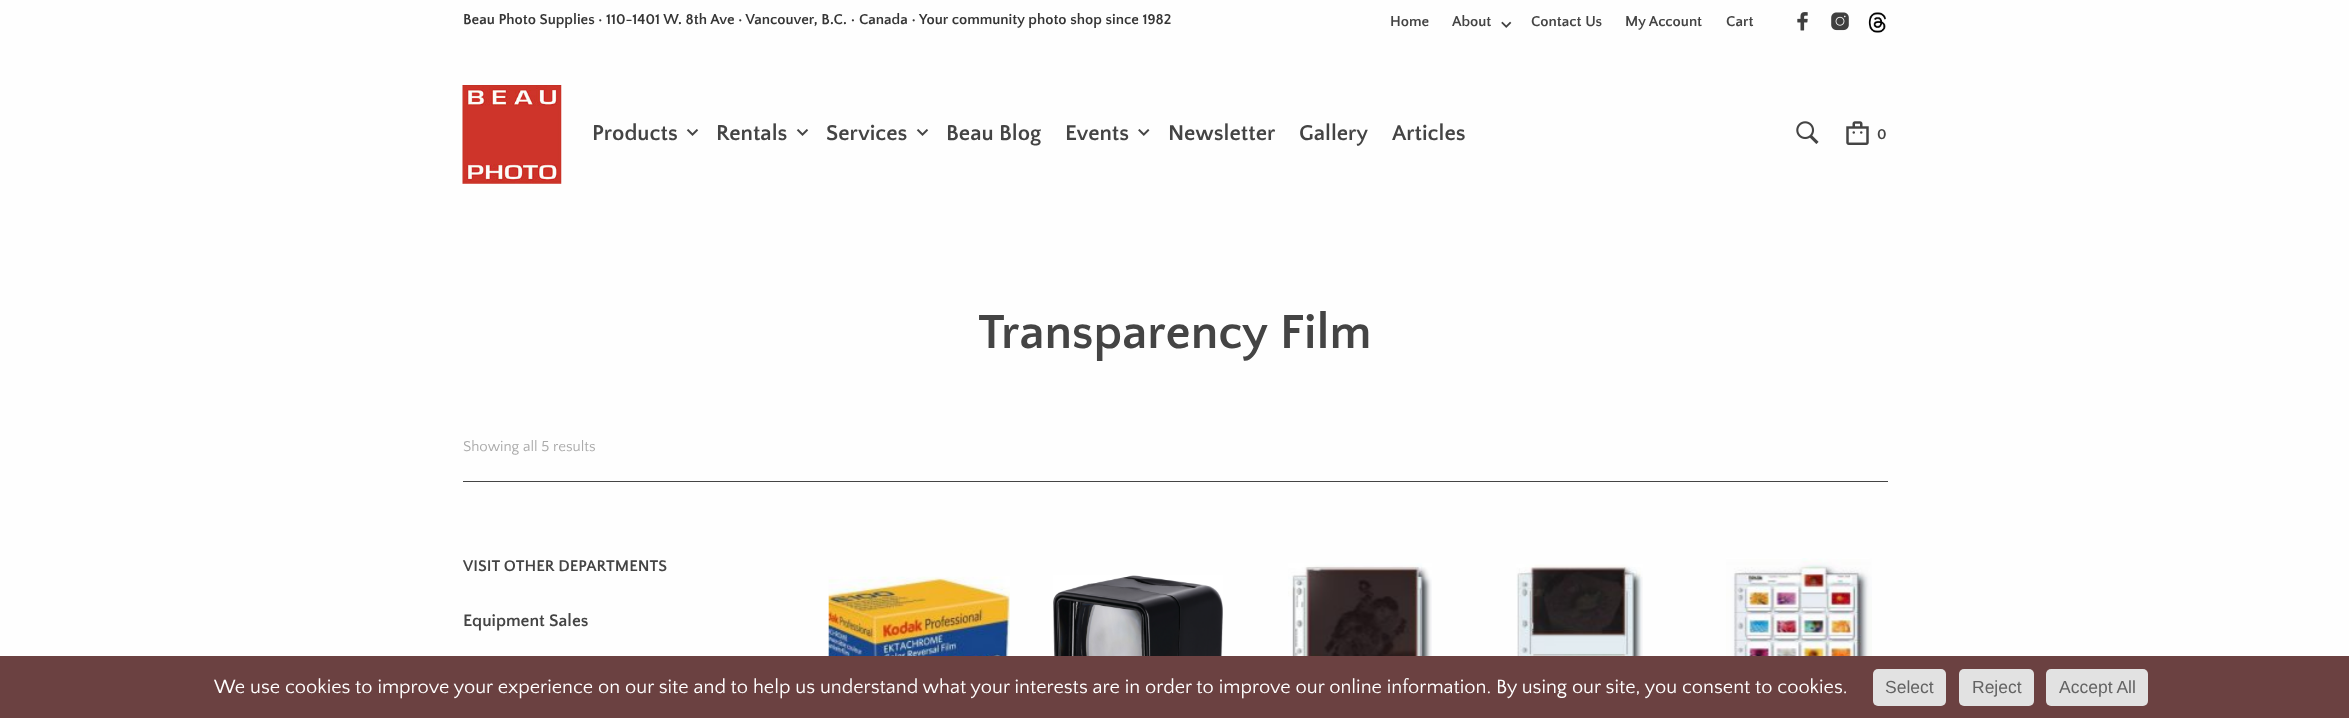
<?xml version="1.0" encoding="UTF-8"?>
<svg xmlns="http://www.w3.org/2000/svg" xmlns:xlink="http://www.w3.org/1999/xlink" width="2349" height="718">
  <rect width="100%" height="100%" fill="#fefefe" />
  <image x="1501" y="21" width="11" height="7" xlink:href="image1.png" />
  <image x="1797" y="12" width="11" height="19" xlink:href="image2.png" />
  <image x="1831" y="12" width="18" height="19" xlink:href="image3.png" />
  <image x="1868" y="12" width="18" height="21" xlink:href="image4.png" />
  <image x="462" y="85" width="100" height="99" xlink:href="image5.png" />
  <image x="686" y="129" width="13" height="7" xlink:href="image6.png" />
  <image x="796" y="129" width="13" height="7" xlink:href="image6.png" />
  <image x="916" y="129" width="13" height="7" xlink:href="image6.png" />
  <image x="1138" y="129" width="12" height="7" xlink:href="image7.png" />
  <image x="1796" y="121" width="23" height="23" xlink:href="image8.png" />
  <image x="1846" y="121" width="23" height="24" xlink:href="image9.png" />
  <rect x="463" y="481" width="1425" height="1" fill="#444444" />
  <image x="828" y="576" width="182" height="80" xlink:href="image10.png" />
  <image x="1053" y="575" width="170" height="81" xlink:href="image11.png" />
  <image x="1288" y="563" width="144" height="93" xlink:href="image12.png" />
  <image x="1516" y="564" width="127" height="92" xlink:href="image13.png" />
  <image x="1726" y="558" width="146" height="98" xlink:href="image14.png" />
  <rect y="656" width="2349" height="62" fill="#6b4141" />
  <rect x="1873" y="669" width="73" height="37" rx="5" fill="#e2e2e2" />
  <rect x="1959" y="669" width="75" height="37" rx="5" fill="#e2e2e2" />
  <rect x="2046" y="669" width="102" height="37" rx="5" fill="#e2e2e2" />
  <text x="463" y="24" style="font-family: Quattrocento Sans; font-size: 15px; font-weight: bold; fill: #353535">Beau Photo Supplies · 110-1401 W. 8th Ave · Vancouver, B.C. • Canada •</text>
  <text x="919" y="24" style="font-family: Quattrocento Sans; font-size: 15px; font-weight: bold; fill: #353535">Your community photo shop since 1982</text>
  <text x="1390" y="26" style="font-family: Quattrocento Sans; font-size: 15px; font-weight: bold; fill: #444444">Home</text>
  <text x="1452" y="26" style="font-family: Quattrocento Sans; font-size: 15px; font-weight: bold; fill: #444444">About</text>
  <text x="1531" y="26" style="font-family: Quattrocento Sans; font-size: 15px; font-weight: bold; fill: #444444">Contact Us</text>
  <text x="1625" y="26" style="font-family: Quattrocento Sans; font-size: 15px; font-weight: bold; fill: #444444">My Account</text>
  <text x="1726" y="26" style="font-family: Quattrocento Sans; font-size: 15px; font-weight: bold; fill: #444444">Cart</text>
  <text x="592" y="140" style="font-family: Quattrocento Sans; font-size: 22.5px; font-weight: bold; fill: #444444">Products</text>
  <text x="716" y="140" style="font-family: Quattrocento Sans; font-size: 22.5px; font-weight: bold; fill: #444444">Rentals</text>
  <text x="826" y="140" style="font-family: Quattrocento Sans; font-size: 22.5px; font-weight: bold; fill: #444444">Services</text>
  <text x="946" y="140" style="font-family: Quattrocento Sans; font-size: 22.5px; font-weight: bold; fill: #444444">Beau Blog</text>
  <text x="1065" y="140" style="font-family: Quattrocento Sans; font-size: 22.5px; font-weight: bold; fill: #444444">Events</text>
  <text x="1168" y="140" style="font-family: Quattrocento Sans; font-size: 22.5px; font-weight: bold; fill: #444444">Newsletter</text>
  <text x="1299" y="140" style="font-family: Quattrocento Sans; font-size: 22.5px; font-weight: bold; fill: #444444">Gallery</text>
  <text x="1392" y="140" style="font-family: Quattrocento Sans; font-size: 22.5px; font-weight: bold; fill: #444444">Articles</text>
  <text x="1877" y="139" style="font-family: Quattrocento Sans; font-size: 15px; font-weight: bold; fill: #444444">0</text>
  <text x="978" y="348" style="font-family: Quattrocento Sans; font-size: 50px; font-weight: bold; fill: #444444">Transparency Film</text>
  <text x="463" y="451" style="font-family: Quattrocento Sans; font-size: 15px; fill: #aaaaaa">Showing all 5 results</text>
  <text x="463" y="571" style="font-family: Quattrocento Sans; font-size: 16.25px; font-weight: bold; fill: #444444">VISIT OTHER DEPARTMENTS</text>
  <text x="463" y="626" style="font-family: Quattrocento Sans; font-size: 17.5px; font-weight: bold; fill: #444444">Equipment Sales</text>
  <text x="214" y="693" style="font-family: Quattrocento Sans; font-size: 20px; fill: #ffffff">We use cookies to improve your experience on our site and to help us understand what your interests are in order to improve our online information. By using our site, you consent to cookies.</text>
  <text x="1885" y="693" style="font-family: Liberation Sans; font-size: 17.5px; fill: #636363">Select</text>
  <text x="1972" y="693" style="font-family: Liberation Sans; font-size: 17.5px; fill: #636363">Reject</text>
  <text x="2059" y="693" style="font-family: Liberation Sans; font-size: 17.5px; fill: #636363">Accept All</text>
</svg>
